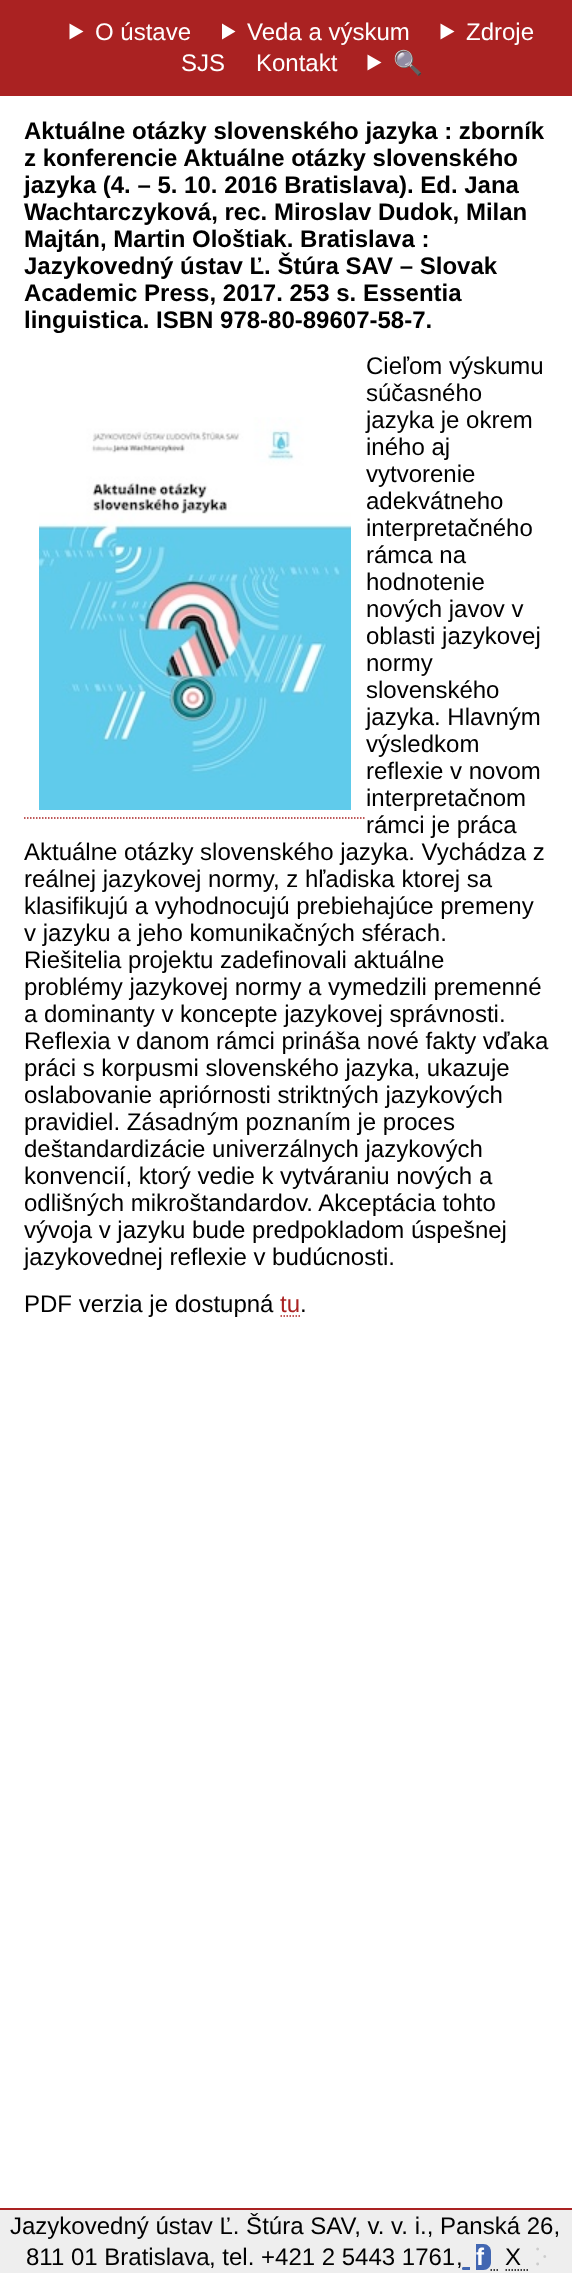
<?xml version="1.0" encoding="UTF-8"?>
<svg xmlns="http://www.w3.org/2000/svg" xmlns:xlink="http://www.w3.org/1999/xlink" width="572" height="2273">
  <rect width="100%" height="100%" fill="#ffffff" />
  <rect width="572" height="96" fill="#aa2222" />
  <path d="M 69.5 23.5 l 14 8 l -14 8 z" fill="#ffffff" />
  <path d="M 222 23.5 l 13.5 8 l -13.5 8 z" fill="#ffffff" />
  <path d="M 440.5 23.5 l 14 8 l -14 8 z" fill="#ffffff" />
  <path d="M 367.5 54.5 l 14 8 l -14 8 z" fill="#ffffff" />
  <path d="M 24 818 h 342" fill="none" stroke="#aa2222" stroke-width="1.5" stroke-dasharray="1.5 1.5" />
  <image x="39" y="417" width="312" height="393" xlink:href="image1.png" />
  <path d="M 280.5 1316 h 19.5" fill="none" stroke="#aa2222" stroke-width="1.5" stroke-dasharray="1.5 1.5" />
  <rect y="2210" width="572" height="63" fill="#eeeeee" />
  <rect y="2208" width="572" height="2" fill="#aa2222" />
  <path d="M 463.5 2267 h 6.5 v 3 h -6.5 c -1 0 -1.5 -0.5 -1.5 -1.5 c 0 -1 0.5 -1.5 1.5 -1.5 z" fill="#4267b2" />
  <path d="M 476 2244 h 7.5 c 4 0 7.5 3.5 7.5 7.5 v 11 c 0 4 -3.5 7.5 -7.5 7.5 h -7.5 z" fill="#4267b2" />
  <path d="M 490.5 2270 h 1.5 m 1.5 0 h 1.5 m 1.5 0 h 1.5" fill="none" stroke="#000000" stroke-width="1.5" />
  <path d="M 505.5 2270 h 22.5" fill="none" stroke="#000000" stroke-width="1.5" stroke-dasharray="1.5 1.5" />
  <text x="95" y="40" style="font-family: Liberation Sans; font-size: 24px; fill: #ffffff">O ústave</text>
  <text x="247" y="40" style="font-family: Liberation Sans; font-size: 24px; fill: #ffffff">Veda a výskum</text>
  <text x="466" y="40" style="font-family: Liberation Sans; font-size: 24px; fill: #ffffff">Zdroje</text>
  <text x="181" y="71" style="font-family: Liberation Sans; font-size: 24px; fill: #ffffff">SJS</text>
  <text x="256" y="71" style="font-family: Liberation Sans; font-size: 24px; fill: #ffffff">Kontakt</text>
  <text x="393" y="71" style="font-family: Noto Color Emoji; font-size: 24px; fill: #ffffff">🔍</text>
  <text x="24" y="139" style="font-family: Liberation Sans; font-size: 24px; font-weight: bold; fill: #000000">Aktuálne otázky slovenského jazyka : zborník</text>
  <text x="24" y="166" style="font-family: Liberation Sans; font-size: 24px; font-weight: bold; fill: #000000">z konferencie Aktuálne otázky slovenského</text>
  <text x="24" y="193" style="font-family: Liberation Sans; font-size: 24px; font-weight: bold; fill: #000000">jazyka (4. – 5. 10. 2016 Bratislava). Ed. Jana</text>
  <text x="24" y="220" style="font-family: Liberation Sans; font-size: 24px; font-weight: bold; fill: #000000">Wachtarczyková, rec. Miroslav Dudok, Milan</text>
  <text x="24" y="247" style="font-family: Liberation Sans; font-size: 24px; font-weight: bold; fill: #000000">Majtán, Martin Ološtiak. Bratislava :</text>
  <text x="24" y="274" style="font-family: Liberation Sans; font-size: 24px; font-weight: bold; fill: #000000">Jazykovedný ústav Ľ. Štúra SAV – Slovak</text>
  <text x="24" y="301" style="font-family: Liberation Sans; font-size: 24px; font-weight: bold; fill: #000000">Academic Press, 2017. 253 s. Essentia</text>
  <text x="24" y="328" style="font-family: Liberation Sans; font-size: 24px; font-weight: bold; fill: #000000">linguistica. ISBN 978-80-89607-58-7.</text>
  <text x="366" y="374" style="font-family: Liberation Sans; font-size: 24px; fill: #000000">Cieľom výskumu</text>
  <text x="366" y="401" style="font-family: Liberation Sans; font-size: 24px; fill: #000000">súčasného</text>
  <text x="366" y="428" style="font-family: Liberation Sans; font-size: 24px; fill: #000000">jazyka je okrem</text>
  <text x="366" y="455" style="font-family: Liberation Sans; font-size: 24px; fill: #000000">iného aj</text>
  <text x="366" y="482" style="font-family: Liberation Sans; font-size: 24px; fill: #000000">vytvorenie</text>
  <text x="366" y="509" style="font-family: Liberation Sans; font-size: 24px; fill: #000000">adekvátneho</text>
  <text x="366" y="536" style="font-family: Liberation Sans; font-size: 24px; fill: #000000">interpretačného</text>
  <text x="366" y="563" style="font-family: Liberation Sans; font-size: 24px; fill: #000000">rámca na</text>
  <text x="366" y="590" style="font-family: Liberation Sans; font-size: 24px; fill: #000000">hodnotenie</text>
  <text x="366" y="617" style="font-family: Liberation Sans; font-size: 24px; fill: #000000">nových javov v</text>
  <text x="366" y="644" style="font-family: Liberation Sans; font-size: 24px; fill: #000000">oblasti jazykovej</text>
  <text x="366" y="671" style="font-family: Liberation Sans; font-size: 24px; fill: #000000">normy</text>
  <text x="366" y="698" style="font-family: Liberation Sans; font-size: 24px; fill: #000000">slovenského</text>
  <text x="366" y="725" style="font-family: Liberation Sans; font-size: 24px; fill: #000000">jazyka. Hlavným</text>
  <text x="366" y="752" style="font-family: Liberation Sans; font-size: 24px; fill: #000000">výsledkom</text>
  <text x="366" y="779" style="font-family: Liberation Sans; font-size: 24px; fill: #000000">reflexie v novom</text>
  <text x="366" y="806" style="font-family: Liberation Sans; font-size: 24px; fill: #000000">interpretačnom</text>
  <text x="366" y="833" style="font-family: Liberation Sans; font-size: 24px; fill: #000000">rámci je práca</text>
  <text x="24" y="860" style="font-family: Liberation Sans; font-size: 24px; fill: #000000">Aktuálne otázky slovenského jazyka. Vychádza z</text>
  <text x="24" y="887" style="font-family: Liberation Sans; font-size: 24px; fill: #000000">reálnej jazykovej normy, z hľadiska ktorej sa</text>
  <text x="24" y="914" style="font-family: Liberation Sans; font-size: 24px; fill: #000000">klasifikujú a vyhodnocujú prebiehajúce premeny</text>
  <text x="24" y="941" style="font-family: Liberation Sans; font-size: 24px; fill: #000000">v jazyku a jeho komunikačných sférach.</text>
  <text x="24" y="968" style="font-family: Liberation Sans; font-size: 24px; fill: #000000">Riešitelia projektu zadefinovali aktuálne</text>
  <text x="24" y="995" style="font-family: Liberation Sans; font-size: 24px; fill: #000000">problémy jazykovej normy a vymedzili premenné</text>
  <text x="24" y="1022" style="font-family: Liberation Sans; font-size: 24px; fill: #000000">a dominanty v koncepte jazykovej správnosti.</text>
  <text x="24" y="1049" style="font-family: Liberation Sans; font-size: 24px; fill: #000000">Reflexia v danom rámci prináša nové fakty vďaka</text>
  <text x="24" y="1076" style="font-family: Liberation Sans; font-size: 24px; fill: #000000">práci s korpusmi slovenského jazyka, ukazuje</text>
  <text x="24" y="1103" style="font-family: Liberation Sans; font-size: 24px; fill: #000000">oslabovanie apriórnosti striktných jazykových</text>
  <text x="24" y="1130" style="font-family: Liberation Sans; font-size: 24px; fill: #000000">pravidiel. Zásadným poznaním je proces</text>
  <text x="24" y="1157" style="font-family: Liberation Sans; font-size: 24px; fill: #000000">deštandardizácie univerzálnych jazykových</text>
  <text x="24" y="1184" style="font-family: Liberation Sans; font-size: 24px; fill: #000000">konvencií, ktorý vedie k vytváraniu nových a</text>
  <text x="24" y="1211" style="font-family: Liberation Sans; font-size: 24px; fill: #000000">odlišných mikroštandardov. Akceptácia tohto</text>
  <text x="24" y="1238" style="font-family: Liberation Sans; font-size: 24px; fill: #000000">vývoja v jazyku bude predpokladom úspešnej</text>
  <text x="24" y="1265" style="font-family: Liberation Sans; font-size: 24px; fill: #000000">jazykovednej reflexie v budúcnosti.</text>
  <text x="24" y="1312" style="font-family: Liberation Sans; font-size: 24px; fill: #000000">PDF verzia je dostupná</text>
  <text x="280" y="1312" style="font-family: Liberation Sans; font-size: 24px; fill: #aa2222">tu</text>
  <text x="300" y="1312" style="font-family: Liberation Sans; font-size: 24px; fill: #000000">.</text>
  <text x="10" y="2234" style="font-family: Liberation Sans; font-size: 24px; fill: #000000">Jazykovedný ústav Ľ. Štúra SAV, v. v. i., Panská 26,</text>
  <text x="26" y="2265" style="font-family: Liberation Sans; font-size: 24px; fill: #000000">811 01 Bratislava</text>
  <text x="209" y="2265" style="font-family: Liberation Sans; font-size: 24px; fill: #000000">, tel. +421 2 5443 1761</text>
  <text x="456" y="2265" style="font-family: Liberation Sans; font-size: 24px; fill: #000000">,</text>
  <text x="476" y="2265" style="font-family: Liberation Sans; font-size: 24px; font-weight: bold; fill: #ffffff">f</text>
  <text x="505" y="2265" style="font-family: Liberation Sans; font-size: 24px; fill: #000000">X</text>
  <text x="535" y="2265" style="font-family: Noto Sans; font-size: 24px; fill: #cccccc">჻</text>
</svg>
